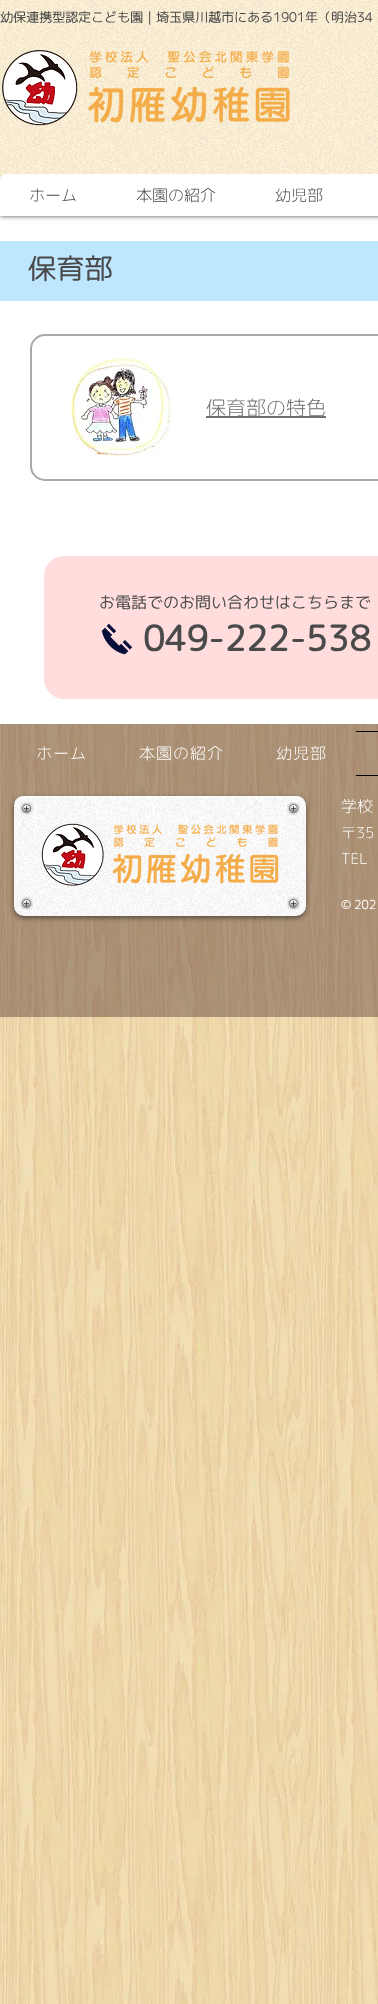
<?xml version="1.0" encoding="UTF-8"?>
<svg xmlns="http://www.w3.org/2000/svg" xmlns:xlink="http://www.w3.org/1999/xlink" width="378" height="2004">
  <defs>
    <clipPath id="clip1"><rect y="241" width="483" height="60" /></clipPath>
  </defs>
  <rect width="100%" height="100%" fill="#ffffff" />
  <rect width="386" height="216" fill="#000000" fill-opacity="0.7" filter="blur(2.5px)" />
  <rect width="378" height="181" fill="#fff4d9" />
  <image x="0" y="0" width="378" height="179" xlink:href="image1.png" />
  <image x="2" y="50" width="288" height="76" xlink:href="image2.png" />
  <path d="M 7 174 h 371 c 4 0 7 3 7 7 v 35 h -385 v -35 c 0 -4 3 -7 7 -7 z" fill="#ffffff" />
  <g clip-path="url(#clip1)">
    <path d="M -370 270 h 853 l -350 499 h -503 z" fill="#bfe6ff" />
    <path d="M 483 272 h -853 v -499 h 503 z" fill="#bfe6ff" />
  </g>
  <rect x="31" y="335" width="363" height="145" rx="14" fill="none" stroke="#aaa8a8" stroke-width="2" />
  <image x="71" y="357" width="100" height="100" xlink:href="image3.png" />
  <rect x="206" y="416" width="120" height="2" fill="#717070" />
  <rect x="44" y="556" width="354" height="143" rx="20" fill="#ffdddd" />
  <image x="101" y="623" width="31" height="32" xlink:href="image4.png" />
  <image x="0" y="724" width="378" height="1280" xlink:href="image11.png" />
  <rect y="724" width="378" height="293" fill="#3f2020" fill-opacity="0.38" />
  <rect x="356" y="731" width="22" height="1" fill="#000000" />
  <rect x="356" y="775" width="22" height="1" fill="#000000" />
  <rect x="14" y="798" width="292" height="120" rx="10" fill="#000000" fill-opacity="0.49" filter="blur(2.5px)" />
  <rect x="14" y="796" width="292" height="120" rx="10" fill="#ffffff" />
  <image x="14" y="796" width="292" height="120" xlink:href="image5.png" />
  <path d="M 24 797 h 272 c 6 0 10 4 10 10 v -1 c 0 -6 -4 -10 -10 -10 h -272 c -6 0 -10 4 -10 10 v 1 c 0 -6 4 -10 10 -10 z" fill="#ffffff" fill-opacity="0.92" />
  <image x="20" y="802" width="13" height="13" xlink:href="image6.png" />
  <image x="287" y="802" width="13" height="13" xlink:href="image7.png" />
  <image x="20" y="897" width="13" height="13" xlink:href="image8.png" />
  <image x="287" y="897" width="13" height="13" xlink:href="image9.png" />
  <image x="41" y="823" width="238" height="63" xlink:href="image10.png" />
  <text x="0" y="22" style="font-family: 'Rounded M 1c'; font-size: 13px; font-weight: bold; fill: #4a4a4a">幼保連携型認定こども園｜埼玉県川越市にある1901年（明治34</text>
  <text x="29" y="201" style="font-family: 'Rounded M 1c'; font-size: 16px; font-weight: 300; fill: #4a4a4a">ホーム</text>
  <text x="136" y="201" style="font-family: 'Rounded M 1c'; font-size: 16px; font-weight: 300; fill: #4a4a4a">本園の紹介</text>
  <text x="275" y="201" style="font-family: 'Rounded M 1c'; font-size: 16px; font-weight: 300; fill: #4a4a4a">幼児部</text>
  <text x="28" y="279" style="font-family: 'Rounded M 1c'; font-size: 28px; font-weight: bold; fill: #4a4a4a">保育部</text>
  <text x="206" y="415" style="font-family: 'Rounded M 1c'; font-size: 20px; font-weight: 300; fill: #717070">保育部の特色</text>
  <text x="99" y="608" style="font-family: 'Rounded M 1c'; font-size: 16px; fill: #4a4a4a">お電話でのお問い合わせはこちらまで</text>
  <text x="143" y="651" style="font-family: 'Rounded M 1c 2'; font-size: 35px; font-weight: bold; fill: #4a4a4a">049-222-538</text>
  <text x="36" y="759" style="font-family: 'Rounded M 1c'; font-size: 16px; font-weight: 300; letter-spacing: 1px; fill: #ffffff">ホーム</text>
  <text x="139" y="759" style="font-family: 'Rounded M 1c'; font-size: 16px; font-weight: 300; letter-spacing: 1px; fill: #ffffff">本園の紹介</text>
  <text x="276" y="759" style="font-family: 'Rounded M 1c'; font-size: 16px; font-weight: 300; letter-spacing: 1px; fill: #ffffff">幼児部</text>
  <text x="341" y="812" style="font-family: 'Rounded M 1c'; font-size: 16px; font-weight: 300; fill: #ffffff">学校</text>
  <text x="341" y="838" style="font-family: 'Rounded M 1c'; font-size: 15px; font-weight: 300; fill: #ffffff">〒35</text>
  <text x="341" y="864" style="font-family: 'Rounded M 1c'; font-size: 15px; font-weight: 300; fill: #ffffff">TEL</text>
  <text x="341" y="909" style="font-family: 'Rounded M 1c'; font-size: 12px; font-weight: bold; fill: #ffffff">© 202</text>
</svg>
